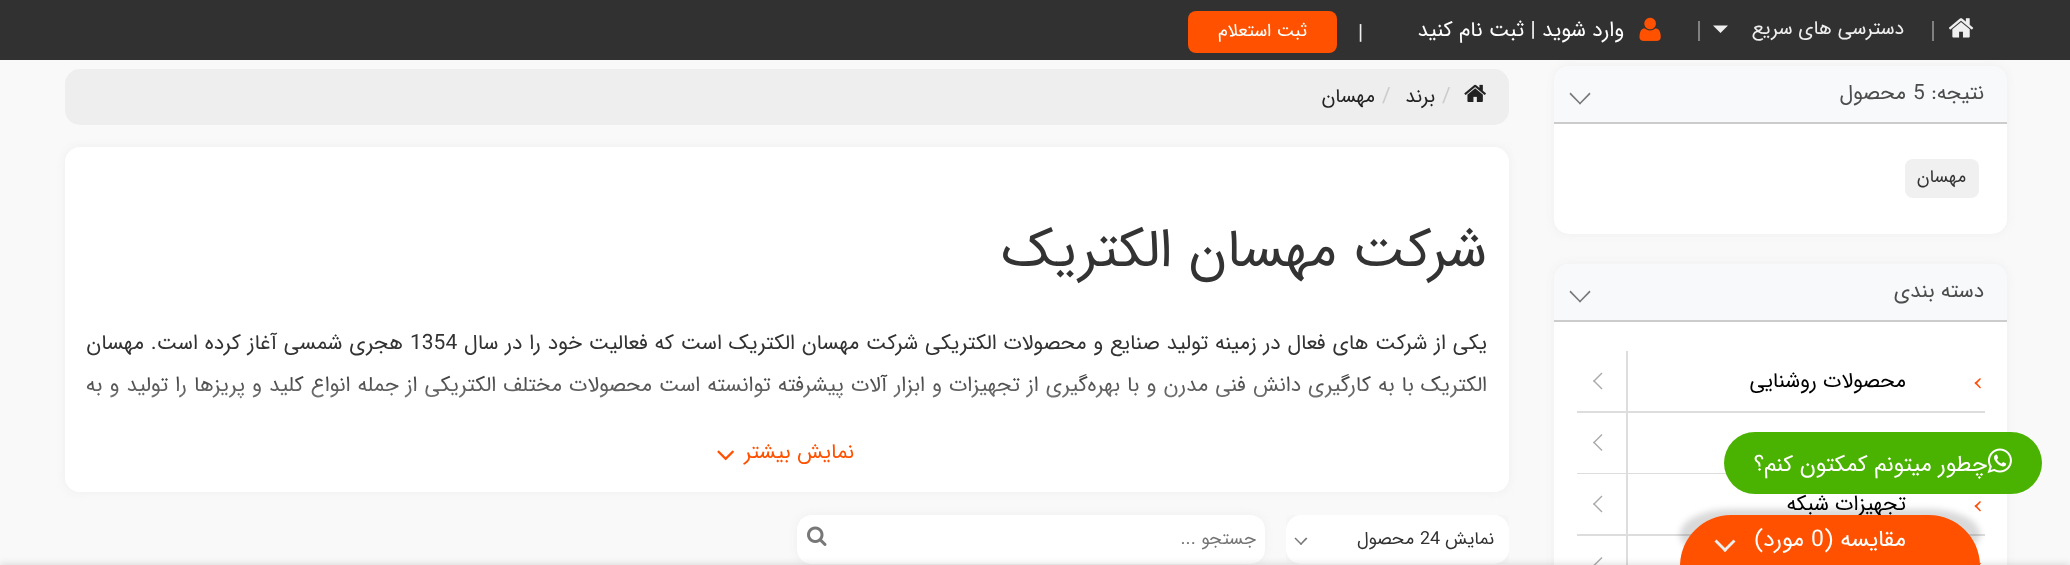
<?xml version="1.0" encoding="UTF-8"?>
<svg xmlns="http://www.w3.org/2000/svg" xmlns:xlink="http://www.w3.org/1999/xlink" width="2070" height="565">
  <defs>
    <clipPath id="clip1"><rect x="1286" y="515" width="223" height="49" /></clipPath>
    <linearGradient id="g1" gradientUnits="userSpaceOnUse" x1="787" y1="372" x2="787" y2="492"><stop offset="0" stop-color="#ffffff" stop-opacity="0" /><stop offset="0.66" stop-color="#ffffff" /></linearGradient>
  </defs>
  <rect width="100%" height="100%" fill="#f9f9f9" />
  <rect x="1554" y="66" width="453" height="168" rx="15" fill="#eeeeee" filter="blur(4px)" />
  <rect width="2070" height="60" fill="#313131" />
  <image x="1949" y="18" width="25" height="20" xlink:href="image1.png" />
  <rect x="1932" y="21" width="2" height="20" fill="#808080" />
  <path d="M 1713 25.5 h 15 l -7.5 7.5 z" fill="#efefef" />
  <rect x="1698" y="21" width="2" height="20" fill="#808080" />
  <image x="1639" y="17" width="22" height="24" xlink:href="image2.png" />
  <rect x="1188" y="11" width="149" height="42" rx="8" fill="#ff5100" />
  <rect x="1554" y="66" width="453" height="168" rx="15" fill="#ffffff" />
  <path d="M 1569 66 h 423 c 8.5 0 15 6.5 15 15 v 42 h -453 v -42 c 0 -8.5 6.5 -15 15 -15 z" fill="#f7f9fa" />
  <rect x="1554" y="122" width="453" height="2" fill="#cccccc" />
  <path d="M 1589.5 92.5 l 1 1.5 l -10.5 10.5 l -1 -1 z" fill="#777777" />
  <path d="M 1570.5 92.5 l 10.5 11 l -1 1 l -10.5 -10.5 z" fill="#777777" />
  <rect x="1905" y="159" width="74" height="39" rx="8" fill="#f0f0f0" />
  <rect x="1554" y="264" width="453" height="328" rx="15" fill="#eeeeee" filter="blur(4px)" />
  <rect x="1554" y="264" width="453" height="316" rx="15" fill="#ffffff" />
  <path d="M 1569 264 h 423 c 8.5 0 15 6.5 15 15 v 42 h -453 v -42 c 0 -8.5 6.5 -15 15 -15 z" fill="#f7f9fa" />
  <rect x="1554" y="320" width="453" height="2" fill="#cccccc" />
  <path d="M 1589.5 290.5 l 1 1.5 l -10.5 10.5 l -1 -1 z" fill="#777777" />
  <path d="M 1570.5 290.5 l 10.5 11 l -1 1 l -10.5 -10.5 z" fill="#777777" />
  <path d="M 1981 387.5 l -1 1 l -5.5 -5.5 l 1.5 -1 z" fill="#ff520d" />
  <path d="M 1981 379 l -5 5.5 l -1.5 -1.5 l 5.5 -5 z" fill="#ff520d" />
  <rect x="1577" y="411" width="408" height="2" fill="#dddddd" />
  <rect x="1626" y="351" width="2" height="60" fill="#dddddd" />
  <path d="M 1602.5 388.5 l -1 1 l -8.5 -8.5 l 1 -1 z" fill="#aaaaaa" />
  <path d="M 1602.5 373.5 l -8.5 8.5 l -1 -1 l 8.5 -8.5 z" fill="#aaaaaa" />
  <rect x="1626" y="413" width="2" height="60" fill="#dddddd" />
  <path d="M 1602.5 450 l -1 1 l -8.5 -8.5 l 1 -1 z" fill="#aaaaaa" />
  <path d="M 1602.5 435 l -8.5 8.5 l -1 -1 l 8.5 -8.5 z" fill="#aaaaaa" />
  <rect x="1577" y="473" width="149" height="1" fill="#dddddd" />
  <path d="M 1981 510.5 l -1 1 l -5.5 -5.5 l 1.5 -1 z" fill="#ff520d" />
  <path d="M 1981 502 l -5 5.5 l -1.5 -1.5 l 5.5 -5 z" fill="#ff520d" />
  <rect x="1577" y="534" width="408" height="2" fill="#dddddd" />
  <rect x="1626" y="474" width="2" height="60" fill="#dddddd" />
  <path d="M 1602.5 511.5 l -1 1 l -8.5 -8.5 l 1 -1 z" fill="#aaaaaa" />
  <path d="M 1602.5 496.5 l -8.5 8.5 l -1 -1 l 8.5 -8.5 z" fill="#aaaaaa" />
  <path d="M 1981 563.5 l -5 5.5 l -1.5 -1 l 5.5 -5.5 z" fill="#ff520d" />
  <rect x="1626" y="536" width="2" height="29" fill="#dddddd" />
  <path d="M 1602.5 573 l -1 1 l -8.5 -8.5 l 1 -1 z" fill="#aaaaaa" />
  <path d="M 1602.5 558 l -8.5 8.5 l -1 -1 l 8.5 -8.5 z" fill="#aaaaaa" />
  <rect x="65" y="69" width="1444" height="56" rx="15" fill="#eeeeee" />
  <image x="1464" y="84" width="22" height="18" xlink:href="image3.png" />
  <rect x="65" y="147" width="1444" height="345" rx="15" fill="#eeeeee" filter="blur(4px)" />
  <rect x="65" y="147" width="1444" height="345" rx="15" fill="#ffffff" />
  <g clip-path="url(#clip1)">
    <rect x="1286" y="515" width="223" height="49" rx="15" fill="#eeeeee" filter="blur(4px)" />
  </g>
  <rect x="1286" y="515" width="223" height="49" rx="15" fill="#ffffff" />
  <path d="M 1306 537.5 l 1.5 1 l -6.5 6.5 l -1 -1 z" fill="#777777" />
  <path d="M 1295.5 537.5 l 6.5 6.5 l -1 1 l -6.5 -6.5 z" fill="#777777" />
  <rect x="797" y="515" width="468" height="49" rx="15" fill="#eeeeee" filter="blur(4px)" />
  <path d="M 836 515 h 414 c 8.5 0 15 6.5 15 15 v 19 c 0 8.5 -6.5 15 -15 15 h -414 z" fill="#ffffff" />
  <path d="M 812 515 h 24 v 49 h -24 c -8.5 0 -15 -6.5 -15 -15 v -19 c 0 -8.5 6.5 -15 15 -15 z" fill="#ffffff" />
  <image x="807" y="526" width="20" height="20" xlink:href="image5.png" />
  <rect x="1680" y="509" width="300" height="51" rx="51" fill="#000000" fill-opacity="0.15" filter="blur(3px)" />
  <rect y="563" width="2070" height="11" fill="#000000" fill-opacity="0.1" filter="blur(3px)" />
  <rect x="1724" y="432" width="318" height="62" rx="31" fill="#4ab200" />
  <image x="1987" y="448" width="25" height="26" xlink:href="image6.png" />
  <text x="1904" y="34" style="font-family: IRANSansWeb; font-size: 19.5px; direction: rtl; fill: #efefef">دسترسی های سریع</text>
  <text x="1624" y="36" style="font-family: IRANSansWeb; font-size: 21px; direction: rtl; fill: #ffffff">وارد شوید | ثبت نام کنید</text>
  <text x="1358" y="39" style="font-family: IRANSansWeb; font-size: 21px; fill: #efefef">|</text>
  <text x="1307" y="36" style="font-family: IRANSansWeb; font-size: 18px; direction: rtl; fill: #ffffff">ثبت استعلام</text>
  <text x="1984" y="99" style="font-family: IRANSansWeb; font-size: 21px; direction: rtl; fill: #4d4d4d">نتیجه:</text>
  <text x="1913" y="99" style="font-family: IRANSansWeb; font-size: 21px; fill: #4d4d4d">5</text>
  <text x="1906" y="99" style="font-family: IRANSansWeb; font-size: 21px; direction: rtl; fill: #4d4d4d">محصول</text>
  <text x="1966" y="182" style="font-family: IRANSansWeb; font-size: 18px; direction: rtl; fill: #333333">مهسان</text>
  <text x="1984" y="297" style="font-family: IRANSansWeb; font-size: 21px; direction: rtl; fill: #4d4d4d">دسته بندی</text>
  <text x="1906" y="387" style="font-family: IRANSansWeb; font-size: 21px; direction: rtl; fill: #000000">محصولات روشنایی</text>
  <text x="1906" y="510" style="font-family: IRANSansWeb; font-size: 21px; direction: rtl; fill: #000000">تجهیزات شبکه</text>
  <text x="1442" y="102" style="font-family: IRANSansWeb; font-size: 21px; fill: #cccccc">/</text>
  <text x="1435" y="102" style="font-family: IRANSansWeb; font-size: 19.5px; direction: rtl; fill: #222222">برند</text>
  <text x="1382" y="102" style="font-family: IRANSansWeb; font-size: 21px; fill: #cccccc">/</text>
  <text x="1375" y="102" style="font-family: IRANSansWeb; font-size: 19.5px; direction: rtl; fill: #222222">مهسان</text>
  <text x="1487" y="266" style="font-family: IRANSansWeb; font-size: 54px; direction: rtl; fill: #333333">شرکت مهسان الکتریک</text>
  <text x="1487" y="349" word-spacing="0.5" style="font-family: IRANSansWeb; font-size: 21px; direction: rtl; fill: #333333">یکی از شرکت های فعال در زمینه تولید صنایع و محصولات الکتریکی شرکت مهسان ‌الکتریک است که فعالیت خود را در سال</text>
  <text x="410" y="349" style="font-family: IRANSansWeb; font-size: 21px; fill: #333333">1354</text>
  <text x="403" y="349" word-spacing="0.5" style="font-family: IRANSansWeb; font-size: 21px; direction: rtl; fill: #333333">هجری شمسی آغاز کرده است. مهسان</text>
  <text x="1487" y="391" word-spacing="0.75" style="font-family: IRANSansWeb; font-size: 21px; direction: rtl; fill: #333333">الکتریک با به کارگیری دانش فنی مدرن و با بهره‌گیری از تجهیزات و ابزار آلات پیشرفته توانسته است محصولات مختلف الکتریکی از جمله انواع کلید و پریزها را تولید و به</text>
  <path d="M 65 372 h 1444 v 105 c 0 8.5 -6.5 15 -15 15 h -1414 c -8.5 0 -15 -6.5 -15 -15 z" fill="url(#g1)" />
  <text x="854" y="458" style="font-family: IRANSansWeb; font-size: 21px; direction: rtl; fill: #ff5100">نمایش بیشتر</text>
  <image x="717" y="450" width="17" height="11" xlink:href="image4.png" />
  <text x="1494" y="544" style="font-family: IRANSansWeb; font-size: 18px; direction: rtl; fill: #333333">نمایش</text>
  <text x="1420" y="544" style="font-family: IRANSansWeb; font-size: 18px; fill: #333333">24</text>
  <text x="1414" y="544" style="font-family: IRANSansWeb; font-size: 18px; direction: rtl; fill: #333333">محصول</text>
  <text x="1256" y="544" style="font-family: IRANSansWeb; font-size: 18px; direction: rtl; fill: #757575">جستجو ...</text>
  <path d="M 1731 515 h 198 c 28 0 51 23 51 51 h -300 c 0 -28 23 -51 51 -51 z" fill="#ff5100" />
  <text x="1906" y="546" style="font-family: IRANSansWeb; font-size: 23px; direction: rtl; fill: #ffffff">مقایسه (</text>
  <text x="1811" y="546" style="font-family: IRANSansWeb; font-size: 23px; fill: #ffffff">0</text>
  <text x="1804" y="546" style="font-family: IRANSansWeb; font-size: 23px; direction: rtl; fill: #ffffff">مورد)</text>
  <path d="M 1733.5 539.5 l 2 2 l -10.5 10.5 l -2 -2 z" fill="#eeeeee" />
  <path d="M 1716.5 539.5 l 10.5 10.5 l -2 2 l -10.5 -10.5 z" fill="#eeeeee" />
  <text x="1987" y="471" style="font-family: IRANSansWeb; font-size: 22.5px; direction: rtl; fill: #ffffff">چطور میتونم کمکتون کنم؟</text>
</svg>
